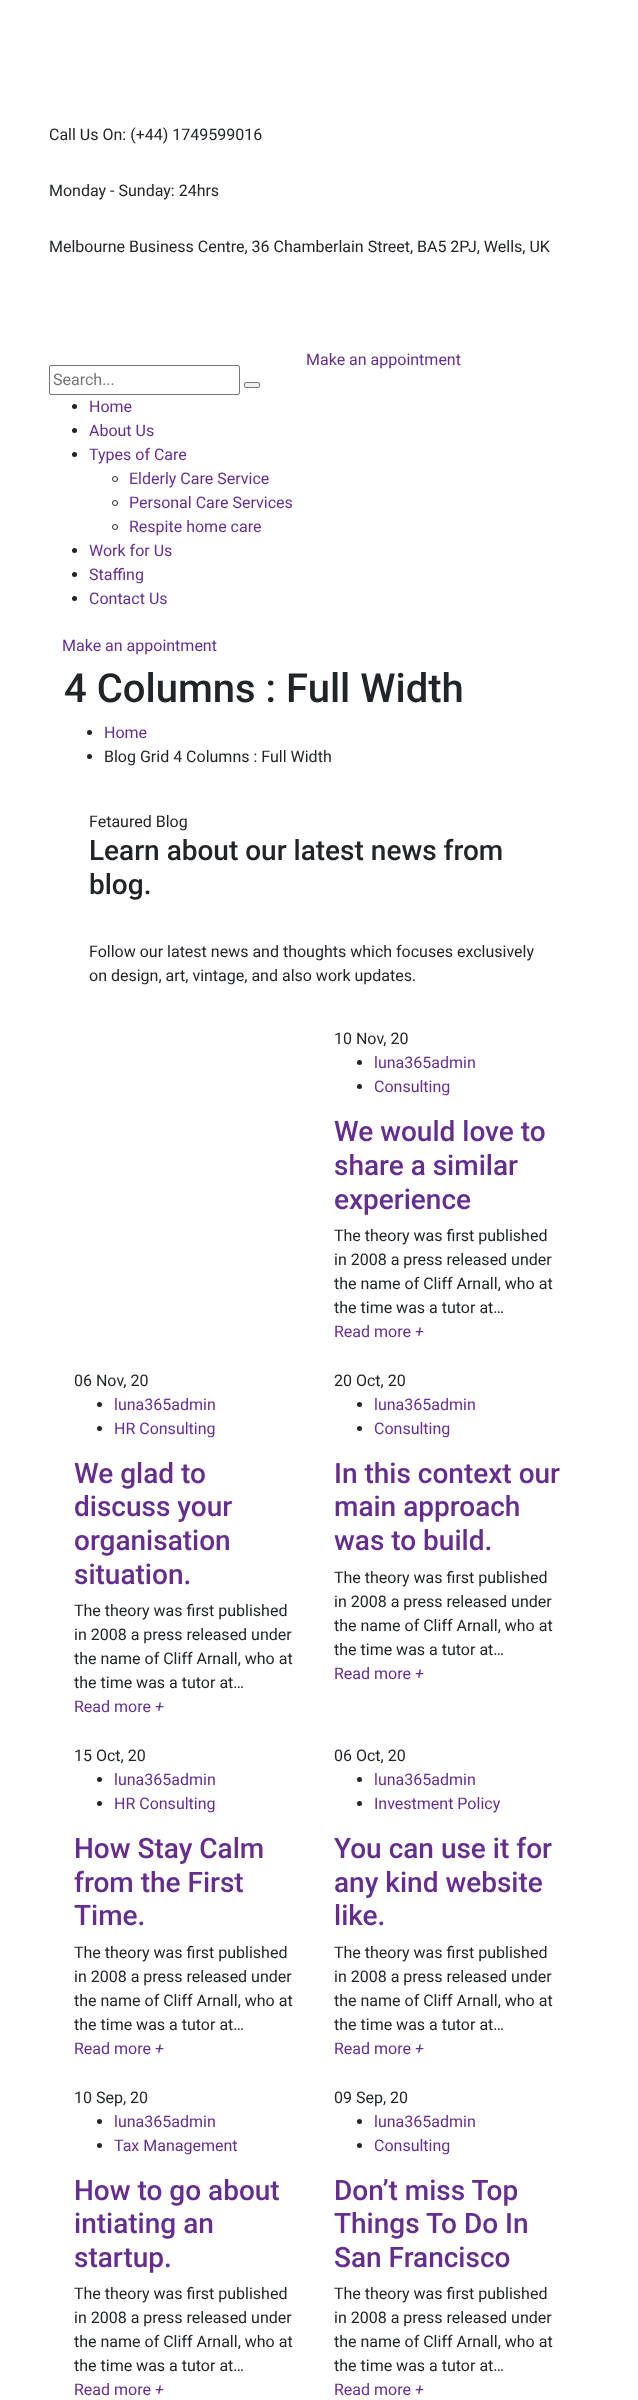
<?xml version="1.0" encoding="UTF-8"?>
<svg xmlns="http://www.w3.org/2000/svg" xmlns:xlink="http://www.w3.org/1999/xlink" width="638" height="2400">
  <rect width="100%" height="100%" fill="#ffffff" />
  <rect x="49.5" y="365.5" width="190" height="29" rx="1.5" fill="none" stroke="#767676" />
  <rect x="244.5" y="382.5" width="15" height="5" rx="1.5" fill="#efefef" stroke="#767676" />
  <circle cx="74.5" cy="406.5" r="2.5" fill="#212529" />
  <circle cx="74.5" cy="430.5" r="2.5" fill="#212529" />
  <circle cx="74.5" cy="454.5" r="2.5" fill="#212529" />
  <circle cx="115" cy="479" r="2.5" fill="none" stroke="#212529" />
  <circle cx="115" cy="503" r="2.5" fill="none" stroke="#212529" />
  <circle cx="115" cy="527" r="2.5" fill="none" stroke="#212529" />
  <circle cx="74.5" cy="550.5" r="2.5" fill="#212529" />
  <circle cx="74.5" cy="574.5" r="2.5" fill="#212529" />
  <circle cx="74.5" cy="598.5" r="2.5" fill="#212529" />
  <circle cx="89.5" cy="732.5" r="2.5" fill="#212529" />
  <circle cx="89.5" cy="756.5" r="2.5" fill="#212529" />
  <circle cx="359.5" cy="1062.5" r="2.5" fill="#212529" />
  <circle cx="359.5" cy="1086.5" r="2.5" fill="#212529" />
  <circle cx="99.5" cy="1404.5" r="2.5" fill="#212529" />
  <circle cx="99.5" cy="1428.5" r="2.5" fill="#212529" />
  <circle cx="359.5" cy="1404.5" r="2.5" fill="#212529" />
  <circle cx="359.5" cy="1428.5" r="2.5" fill="#212529" />
  <circle cx="99.5" cy="1779.5" r="2.5" fill="#212529" />
  <circle cx="99.5" cy="1803.5" r="2.5" fill="#212529" />
  <circle cx="359.5" cy="1779.5" r="2.5" fill="#212529" />
  <circle cx="359.5" cy="1803.5" r="2.5" fill="#212529" />
  <circle cx="99.5" cy="2121.5" r="2.5" fill="#212529" />
  <circle cx="99.5" cy="2145.5" r="2.5" fill="#212529" />
  <circle cx="359.5" cy="2121.5" r="2.5" fill="#212529" />
  <circle cx="359.5" cy="2145.5" r="2.5" fill="#212529" />
  <text x="49" y="140" style="font-family: Roboto; font-size: 16px; fill: #212529">Call Us On: (+44) 1749599016</text>
  <text x="49" y="196" style="font-family: Roboto; font-size: 16px; fill: #212529">Monday - Sunday: 24hrs</text>
  <text x="49" y="252" style="font-family: Roboto; font-size: 16px; fill: #212529">Melbourne Business Centre, 36 Chamberlain Street, BA5 2PJ, Wells, UK</text>
  <text x="306" y="365" style="font-family: Roboto; font-size: 16px; fill: #662d91">Make an appointment</text>
  <text x="53" y="385" style="font-family: Roboto; font-size: 16px; fill: #757575">Search...</text>
  <text x="89" y="412" style="font-family: Roboto; font-size: 16px; fill: #662d91">Home</text>
  <text x="89" y="436" style="font-family: Roboto; font-size: 16px; fill: #662d91">About Us</text>
  <text x="89" y="460" style="font-family: Roboto; font-size: 16px; fill: #662d91">Types of Care</text>
  <text x="129" y="484" style="font-family: Roboto; font-size: 16px; fill: #662d91">Elderly Care Service</text>
  <text x="129" y="508" style="font-family: Roboto; font-size: 16px; fill: #662d91">Personal Care Services</text>
  <text x="129" y="532" style="font-family: Roboto; font-size: 16px; fill: #662d91">Respite home care</text>
  <text x="89" y="556" style="font-family: Roboto; font-size: 16px; fill: #662d91">Work for Us</text>
  <text x="89" y="580" style="font-family: Roboto; font-size: 16px; fill: #662d91">Staffing</text>
  <text x="89" y="604" style="font-family: Roboto; font-size: 16px; fill: #662d91">Contact Us</text>
  <text x="62" y="651" style="font-family: Roboto; font-size: 16px; fill: #662d91">Make an appointment</text>
  <text x="64" y="702" style="font-family: Roboto; font-size: 40px; font-weight: 500; fill: #212529">4 Columns : Full Width</text>
  <text x="104" y="738" style="font-family: Roboto; font-size: 16px; fill: #662d91">Home</text>
  <text x="104" y="762" style="font-family: Roboto; font-size: 16px; fill: #212529">Blog Grid 4 Columns : Full Width</text>
  <text x="89" y="827" style="font-family: Roboto; font-size: 16px; fill: #212529">Fetaured Blog</text>
  <text x="89" y="860" style="font-family: Roboto; font-size: 28px; font-weight: 500; fill: #212529">Learn about our latest news from</text>
  <text x="89" y="894" style="font-family: Roboto; font-size: 28px; font-weight: 500; fill: #212529">blog.</text>
  <text x="89" y="957" style="font-family: Roboto; font-size: 16px; fill: #212529">Follow our latest news and thoughts which focuses exclusively</text>
  <text x="89" y="981" style="font-family: Roboto; font-size: 16px; fill: #212529">on design, art, vintage, and also work updates.</text>
  <text x="334" y="1044" style="font-family: Roboto; font-size: 16px; fill: #212529">10 Nov, 20</text>
  <text x="374" y="1068" style="font-family: Roboto; font-size: 16px; fill: #662d91">luna365admin</text>
  <text x="374" y="1092" style="font-family: Roboto; font-size: 16px; fill: #662d91">Consulting</text>
  <text x="334" y="1141" style="font-family: Roboto; font-size: 28px; font-weight: 500; fill: #662d91">We would love to</text>
  <text x="334" y="1175" style="font-family: Roboto; font-size: 28px; font-weight: 500; fill: #662d91">share a similar</text>
  <text x="334" y="1209" style="font-family: Roboto; font-size: 28px; font-weight: 500; fill: #662d91">experience</text>
  <text x="334" y="1241" style="font-family: Roboto; font-size: 16px; fill: #212529">The theory was first published</text>
  <text x="334" y="1265" style="font-family: Roboto; font-size: 16px; fill: #212529">in 2008 a press released under</text>
  <text x="334" y="1289" style="font-family: Roboto; font-size: 16px; fill: #212529">the name of Cliff Arnall, who at</text>
  <text x="334" y="1313" style="font-family: Roboto; font-size: 16px; fill: #212529">the time was a tutor at…</text>
  <text x="334" y="1337" style="font-family: Roboto; font-size: 16px; fill: #662d91">Read more</text>
  <text x="415" y="1337" style="font-family: Roboto; font-size: 16px; font-style: italic; fill: #662d91">+</text>
  <text x="74" y="1386" style="font-family: Roboto; font-size: 16px; fill: #212529">06 Nov, 20</text>
  <text x="114" y="1410" style="font-family: Roboto; font-size: 16px; fill: #662d91">luna365admin</text>
  <text x="114" y="1434" style="font-family: Roboto; font-size: 16px; fill: #662d91">HR Consulting</text>
  <text x="74" y="1483" style="font-family: Roboto; font-size: 28px; font-weight: 500; fill: #662d91">We glad to</text>
  <text x="74" y="1516" style="font-family: Roboto; font-size: 28px; font-weight: 500; fill: #662d91">discuss your</text>
  <text x="74" y="1550" style="font-family: Roboto; font-size: 28px; font-weight: 500; fill: #662d91">organisation</text>
  <text x="74" y="1584" style="font-family: Roboto; font-size: 28px; font-weight: 500; fill: #662d91">situation.</text>
  <text x="74" y="1616" style="font-family: Roboto; font-size: 16px; fill: #212529">The theory was first published</text>
  <text x="74" y="1640" style="font-family: Roboto; font-size: 16px; fill: #212529">in 2008 a press released under</text>
  <text x="74" y="1664" style="font-family: Roboto; font-size: 16px; fill: #212529">the name of Cliff Arnall, who at</text>
  <text x="74" y="1688" style="font-family: Roboto; font-size: 16px; fill: #212529">the time was a tutor at…</text>
  <text x="74" y="1712" style="font-family: Roboto; font-size: 16px; fill: #662d91">Read more</text>
  <text x="155" y="1712" style="font-family: Roboto; font-size: 16px; font-style: italic; fill: #662d91">+</text>
  <text x="334" y="1386" style="font-family: Roboto; font-size: 16px; fill: #212529">20 Oct, 20</text>
  <text x="374" y="1410" style="font-family: Roboto; font-size: 16px; fill: #662d91">luna365admin</text>
  <text x="374" y="1434" style="font-family: Roboto; font-size: 16px; fill: #662d91">Consulting</text>
  <text x="334" y="1483" style="font-family: Roboto; font-size: 28px; font-weight: 500; fill: #662d91">In this context our</text>
  <text x="334" y="1516" style="font-family: Roboto; font-size: 28px; font-weight: 500; fill: #662d91">main approach</text>
  <text x="334" y="1550" style="font-family: Roboto; font-size: 28px; font-weight: 500; fill: #662d91">was to build.</text>
  <text x="334" y="1583" style="font-family: Roboto; font-size: 16px; fill: #212529">The theory was first published</text>
  <text x="334" y="1607" style="font-family: Roboto; font-size: 16px; fill: #212529">in 2008 a press released under</text>
  <text x="334" y="1631" style="font-family: Roboto; font-size: 16px; fill: #212529">the name of Cliff Arnall, who at</text>
  <text x="334" y="1655" style="font-family: Roboto; font-size: 16px; fill: #212529">the time was a tutor at…</text>
  <text x="334" y="1679" style="font-family: Roboto; font-size: 16px; fill: #662d91">Read more</text>
  <text x="415" y="1679" style="font-family: Roboto; font-size: 16px; font-style: italic; fill: #662d91">+</text>
  <text x="74" y="1761" style="font-family: Roboto; font-size: 16px; fill: #212529">15 Oct, 20</text>
  <text x="114" y="1785" style="font-family: Roboto; font-size: 16px; fill: #662d91">luna365admin</text>
  <text x="114" y="1809" style="font-family: Roboto; font-size: 16px; fill: #662d91">HR Consulting</text>
  <text x="74" y="1858" style="font-family: Roboto; font-size: 28px; font-weight: 500; fill: #662d91">How Stay Calm</text>
  <text x="74" y="1892" style="font-family: Roboto; font-size: 28px; font-weight: 500; fill: #662d91">from the First</text>
  <text x="74" y="1925" style="font-family: Roboto; font-size: 28px; font-weight: 500; fill: #662d91">Time.</text>
  <text x="74" y="1958" style="font-family: Roboto; font-size: 16px; fill: #212529">The theory was first published</text>
  <text x="74" y="1982" style="font-family: Roboto; font-size: 16px; fill: #212529">in 2008 a press released under</text>
  <text x="74" y="2006" style="font-family: Roboto; font-size: 16px; fill: #212529">the name of Cliff Arnall, who at</text>
  <text x="74" y="2030" style="font-family: Roboto; font-size: 16px; fill: #212529">the time was a tutor at…</text>
  <text x="74" y="2054" style="font-family: Roboto; font-size: 16px; fill: #662d91">Read more</text>
  <text x="155" y="2054" style="font-family: Roboto; font-size: 16px; font-style: italic; fill: #662d91">+</text>
  <text x="334" y="1761" style="font-family: Roboto; font-size: 16px; fill: #212529">06 Oct, 20</text>
  <text x="374" y="1785" style="font-family: Roboto; font-size: 16px; fill: #662d91">luna365admin</text>
  <text x="374" y="1809" style="font-family: Roboto; font-size: 16px; fill: #662d91">Investment Policy</text>
  <text x="334" y="1858" style="font-family: Roboto; font-size: 28px; font-weight: 500; fill: #662d91">You can use it for</text>
  <text x="334" y="1892" style="font-family: Roboto; font-size: 28px; font-weight: 500; fill: #662d91">any kind website</text>
  <text x="334" y="1925" style="font-family: Roboto; font-size: 28px; font-weight: 500; fill: #662d91">like.</text>
  <text x="334" y="1958" style="font-family: Roboto; font-size: 16px; fill: #212529">The theory was first published</text>
  <text x="334" y="1982" style="font-family: Roboto; font-size: 16px; fill: #212529">in 2008 a press released under</text>
  <text x="334" y="2006" style="font-family: Roboto; font-size: 16px; fill: #212529">the name of Cliff Arnall, who at</text>
  <text x="334" y="2030" style="font-family: Roboto; font-size: 16px; fill: #212529">the time was a tutor at…</text>
  <text x="334" y="2054" style="font-family: Roboto; font-size: 16px; fill: #662d91">Read more</text>
  <text x="415" y="2054" style="font-family: Roboto; font-size: 16px; font-style: italic; fill: #662d91">+</text>
  <text x="74" y="2103" style="font-family: Roboto; font-size: 16px; fill: #212529">10 Sep, 20</text>
  <text x="114" y="2127" style="font-family: Roboto; font-size: 16px; fill: #662d91">luna365admin</text>
  <text x="114" y="2151" style="font-family: Roboto; font-size: 16px; fill: #662d91">Tax Management</text>
  <text x="74" y="2200" style="font-family: Roboto; font-size: 28px; font-weight: 500; fill: #662d91">How to go about</text>
  <text x="74" y="2233" style="font-family: Roboto; font-size: 28px; font-weight: 500; fill: #662d91">intiating an</text>
  <text x="74" y="2267" style="font-family: Roboto; font-size: 28px; font-weight: 500; fill: #662d91">startup.</text>
  <text x="74" y="2299" style="font-family: Roboto; font-size: 16px; fill: #212529">The theory was first published</text>
  <text x="74" y="2323" style="font-family: Roboto; font-size: 16px; fill: #212529">in 2008 a press released under</text>
  <text x="74" y="2347" style="font-family: Roboto; font-size: 16px; fill: #212529">the name of Cliff Arnall, who at</text>
  <text x="74" y="2371" style="font-family: Roboto; font-size: 16px; fill: #212529">the time was a tutor at…</text>
  <text x="74" y="2395" style="font-family: Roboto; font-size: 16px; fill: #662d91">Read more</text>
  <text x="155" y="2395" style="font-family: Roboto; font-size: 16px; font-style: italic; fill: #662d91">+</text>
  <text x="334" y="2103" style="font-family: Roboto; font-size: 16px; fill: #212529">09 Sep, 20</text>
  <text x="374" y="2127" style="font-family: Roboto; font-size: 16px; fill: #662d91">luna365admin</text>
  <text x="374" y="2151" style="font-family: Roboto; font-size: 16px; fill: #662d91">Consulting</text>
  <text x="334" y="2200" style="font-family: Roboto; font-size: 28px; font-weight: 500; fill: #662d91">Don’t miss Top</text>
  <text x="334" y="2233" style="font-family: Roboto; font-size: 28px; font-weight: 500; fill: #662d91">Things To Do In</text>
  <text x="334" y="2267" style="font-family: Roboto; font-size: 28px; font-weight: 500; fill: #662d91">San Francisco</text>
  <text x="334" y="2299" style="font-family: Roboto; font-size: 16px; fill: #212529">The theory was first published</text>
  <text x="334" y="2323" style="font-family: Roboto; font-size: 16px; fill: #212529">in 2008 a press released under</text>
  <text x="334" y="2347" style="font-family: Roboto; font-size: 16px; fill: #212529">the name of Cliff Arnall, who at</text>
  <text x="334" y="2371" style="font-family: Roboto; font-size: 16px; fill: #212529">the time was a tutor at…</text>
  <text x="334" y="2395" style="font-family: Roboto; font-size: 16px; fill: #662d91">Read more</text>
  <text x="415" y="2395" style="font-family: Roboto; font-size: 16px; font-style: italic; fill: #662d91">+</text>
</svg>
